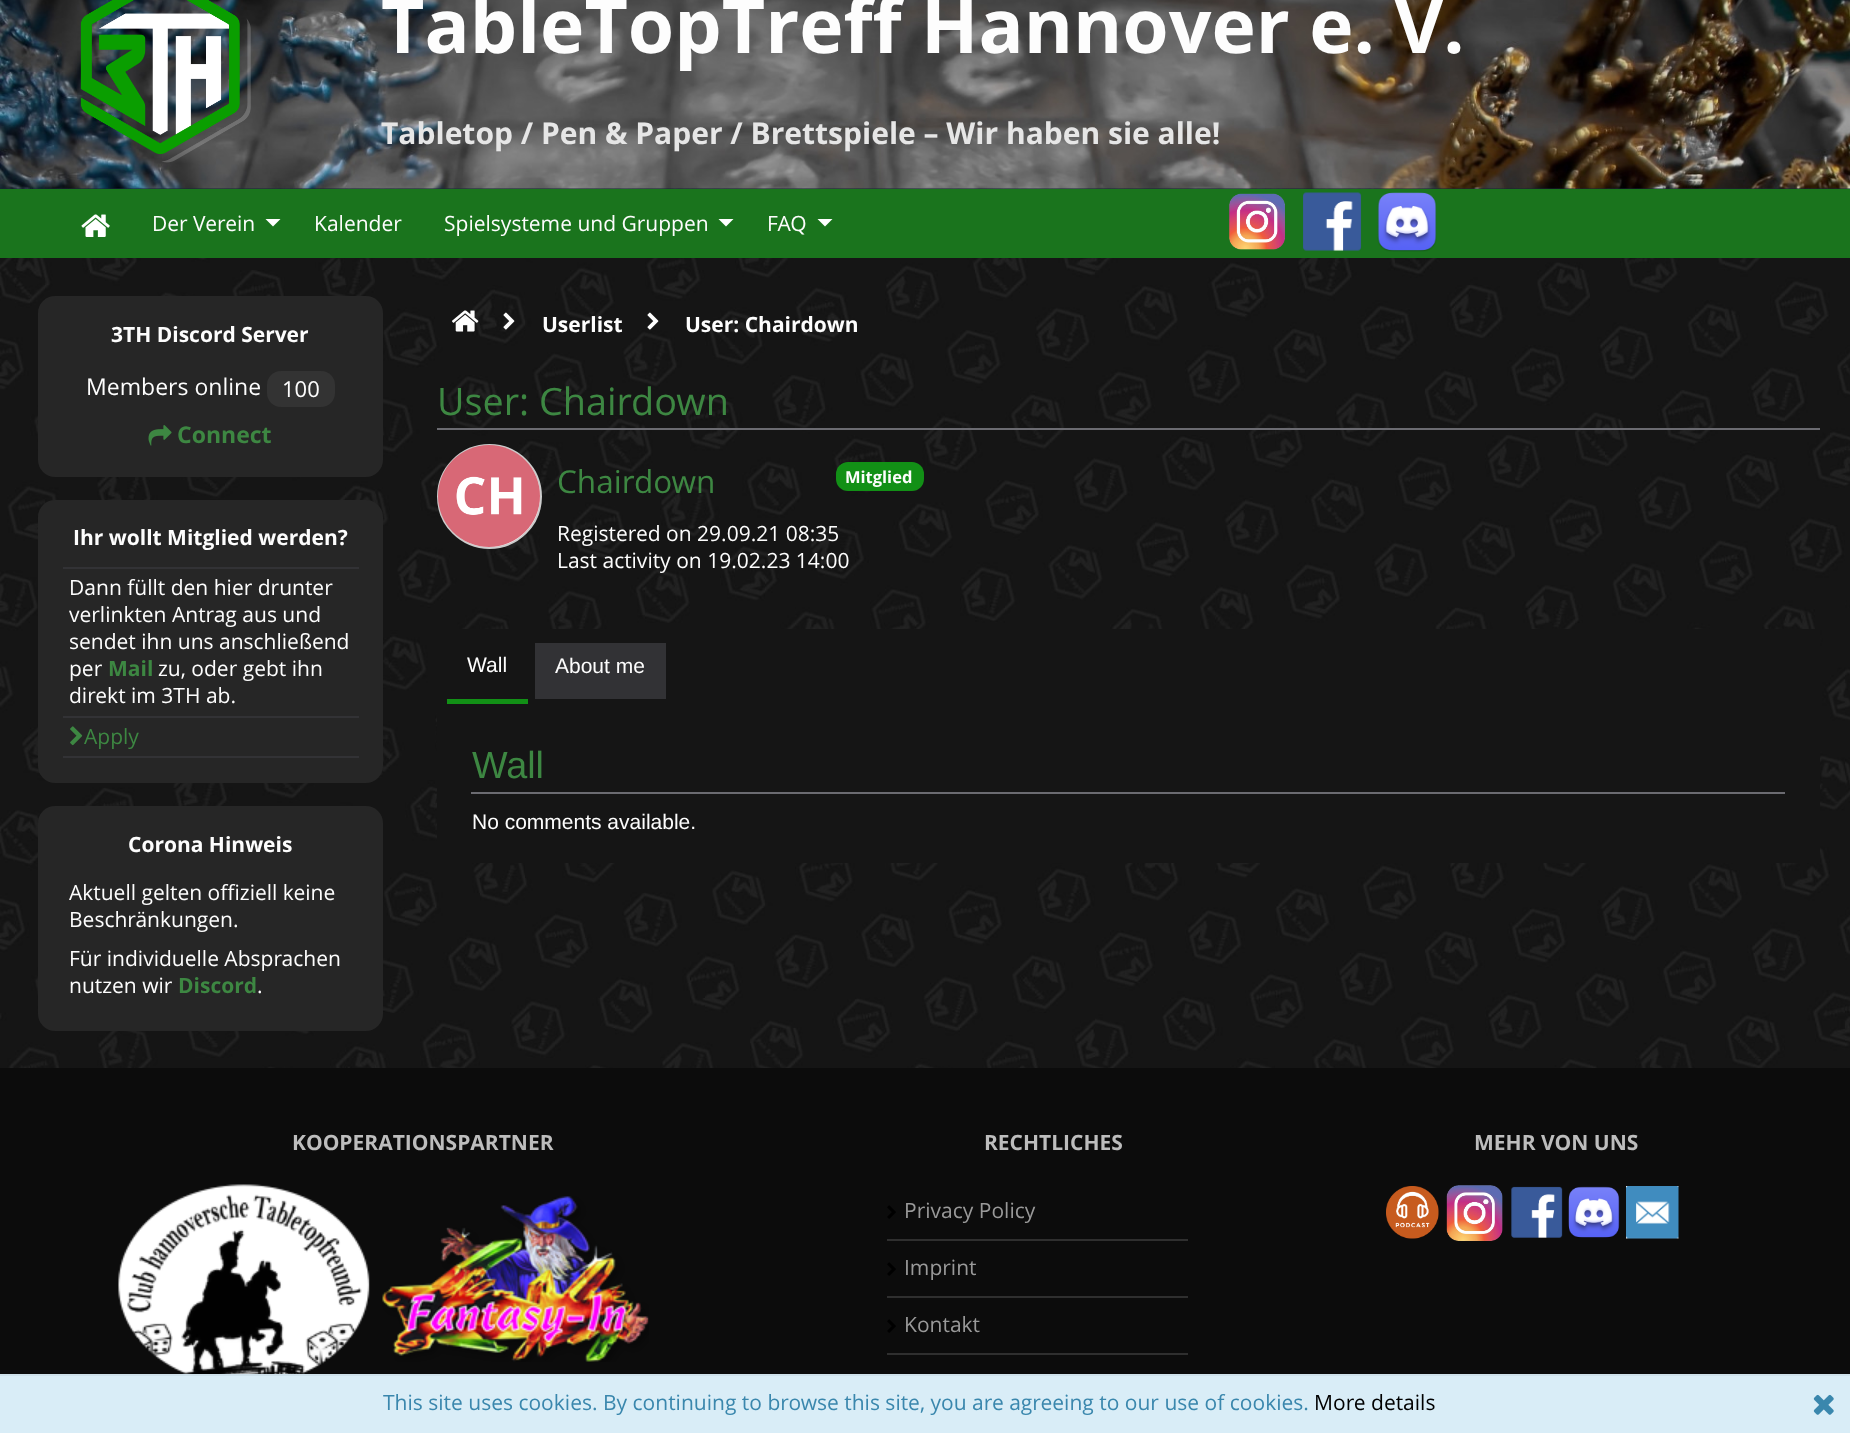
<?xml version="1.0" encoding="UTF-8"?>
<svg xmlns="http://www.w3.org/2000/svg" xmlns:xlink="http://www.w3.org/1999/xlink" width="1850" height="1433">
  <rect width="100%" height="100%" fill="#ffffff" />
  <image x="0" y="188" width="1850" height="880" xlink:href="image1.png" />
  <image x="0" y="0" width="1850" height="189" xlink:href="image2.png" />
  <image x="80" y="0" width="171" height="163" xlink:href="image3.png" />
  <rect y="189" width="1850" height="69" fill="#1a741d" />
  <image x="81" y="214" width="29" height="23" xlink:href="image4.png" />
  <path d="M 265.5 219 h 15 l -7.5 7.5 z" fill="#ffffff" />
  <path d="M 718.5 219 h 15 l -7.5 7.5 z" fill="#ffffff" />
  <path d="M 817.5 219 h 15 l -7.5 7.5 z" fill="#ffffff" />
  <image x="1229" y="193" width="56" height="57" xlink:href="image5.png" />
  <image x="1303" y="192" width="59" height="59" xlink:href="image6.png" />
  <image x="1377" y="192" width="60" height="60" xlink:href="image7.png" />
  <rect x="38" y="296" width="345" height="181" rx="17" fill="#262626" />
  <rect x="267" y="371" width="68" height="36" rx="14" fill="#333333" />
  <image x="148" y="425" width="24" height="21" xlink:href="image8.png" />
  <rect x="38" y="500" width="345" height="283" rx="17" fill="#262626" />
  <rect x="63" y="567" width="296" height="2" fill="#323235" />
  <rect x="63" y="716" width="296" height="2" fill="#323235" />
  <rect x="63" y="756" width="296" height="2" fill="#323235" />
  <image x="70" y="726" width="13" height="20" xlink:href="image9.png" />
  <rect x="38" y="806" width="345" height="225" rx="17" fill="#262626" />
  <image x="452" y="310" width="27" height="22" xlink:href="image10.png" />
  <image x="503" y="312" width="12" height="18" xlink:href="image11.png" />
  <image x="647" y="312" width="12" height="18" xlink:href="image12.png" />
  <rect x="437" y="428" width="1383" height="2" fill="#6b6b71" />
  <circle cx="489.5" cy="496.5" r="51.5" fill="#ffffff" stroke="#cccccc" stroke-width="2" />
  <image x="438" y="445" width="102" height="102" xlink:href="image13.png" />
  <rect x="836" y="462" width="88" height="29" rx="12" fill="#129016" />
  <rect x="437" y="629" width="1383" height="234" fill="#151515" />
  <rect x="447" y="699" width="81" height="5" fill="#129016" />
  <rect x="535" y="643" width="131" height="56" fill="#323235" />
  <rect x="471" y="792" width="1314" height="2" fill="#6b6b71" />
  <rect y="1376" width="1850" height="57" fill="#d9edf7" />
  <rect y="1374" width="1850" height="2" fill="#cee1eb" />
  <image x="1813" y="1394" width="21" height="21" xlink:href="image14.png" />
  <rect y="1068" width="1850" height="306" fill="#0c0c0c" />
  <image x="118" y="1184" width="252" height="190" xlink:href="image15.png" />
  <image x="382" y="1196" width="267" height="166" xlink:href="image16.png" />
  <rect x="887" y="1239" width="301" height="2" fill="#2f2f2f" />
  <image x="887" y="1205" width="9" height="14" xlink:href="image17.png" />
  <rect x="887" y="1296" width="301" height="2" fill="#2f2f2f" />
  <image x="887" y="1262" width="9" height="14" xlink:href="image17.png" />
  <rect x="887" y="1353" width="301" height="2" fill="#2f2f2f" />
  <image x="887" y="1319" width="9" height="14" xlink:href="image17.png" />
  <image x="1386" y="1186" width="53" height="53" xlink:href="image18.png" />
  <image x="1446" y="1185" width="57" height="56" xlink:href="image19.png" />
  <image x="1511" y="1186" width="52" height="52" xlink:href="image20.png" />
  <image x="1568" y="1186" width="52" height="52" xlink:href="image21.png" />
  <image x="1626" y="1186" width="53" height="53" xlink:href="image22.png" />
  <text x="381" y="53" style="font-family: Open Sans; font-size: 75px; font-weight: bold; fill: #fdfdfd">TableTopTreff Hannover e. V.</text>
  <text x="381" y="144" style="font-family: Open Sans; font-size: 30px; font-weight: bold; fill: #e6e6e6">Tabletop / Pen &amp; Paper / Brettspiele – Wir haben sie alle!</text>
  <text x="152" y="231" style="font-family: Open Sans; font-size: 21px; fill: #fdfdfd">Der Verein</text>
  <text x="314" y="231" style="font-family: Open Sans; font-size: 21px; fill: #fdfdfd">Kalender</text>
  <text x="444" y="231" style="font-family: Open Sans; font-size: 21px; fill: #fdfdfd">Spielsysteme und Gruppen</text>
  <text x="767" y="231" style="font-family: Open Sans; font-size: 21px; fill: #fdfdfd">FAQ</text>
  <text x="111" y="342" style="font-family: Open Sans; font-size: 21px; font-weight: bold; fill: #fdfdfd">3TH Discord Server</text>
  <text x="86" y="395" style="font-family: Open Sans; font-size: 23px; fill: #fdfdfd">Members online</text>
  <text x="282" y="397" style="font-family: Open Sans; font-size: 22px; fill: #fdfdfd">100</text>
  <text x="177" y="443" style="font-family: Open Sans; font-size: 23px; font-weight: bold; fill: #3d8742">Connect</text>
  <text x="73" y="545" style="font-family: Open Sans; font-size: 21px; font-weight: bold; fill: #fdfdfd">Ihr wollt Mitglied werden?</text>
  <text x="69" y="595" style="font-family: Open Sans; font-size: 21px; fill: #fdfdfd">Dann füllt den hier drunter</text>
  <text x="69" y="622" style="font-family: Open Sans; font-size: 21px; fill: #fdfdfd">verlinkten Antrag aus und</text>
  <text x="69" y="649" style="font-family: Open Sans; font-size: 21px; fill: #fdfdfd">sendet ihn uns anschließend</text>
  <text x="69" y="676" style="font-family: Open Sans; font-size: 21px; fill: #fdfdfd">per</text>
  <text x="108" y="676" style="font-family: Open Sans; font-size: 21px; font-weight: bold; fill: #3d8742">Mail</text>
  <text x="158" y="676" style="font-family: Open Sans; font-size: 21px; fill: #fdfdfd">zu, oder gebt ihn</text>
  <text x="69" y="703" style="font-family: Open Sans; font-size: 21px; fill: #fdfdfd">direkt im 3TH ab.</text>
  <text x="84" y="744" style="font-family: Open Sans; font-size: 21px; fill: #3d8742">Apply</text>
  <text x="128" y="852" style="font-family: Open Sans; font-size: 21px; font-weight: bold; fill: #fdfdfd">Corona Hinweis</text>
  <text x="69" y="900" style="font-family: Open Sans; font-size: 21px; fill: #fdfdfd">Aktuell gelten offiziell keine</text>
  <text x="69" y="927" style="font-family: Open Sans; font-size: 21px; fill: #fdfdfd">Beschränkungen.</text>
  <text x="69" y="966" style="font-family: Open Sans; font-size: 21px; fill: #fdfdfd">Für individuelle Absprachen</text>
  <text x="69" y="993" style="font-family: Open Sans; font-size: 21px; fill: #fdfdfd">nutzen wir</text>
  <text x="178" y="993" style="font-family: Open Sans; font-size: 21px; font-weight: bold; fill: #3d8742">Discord</text>
  <text x="257" y="993" style="font-family: Open Sans; font-size: 21px; fill: #fdfdfd">.</text>
  <text x="542" y="332" style="font-family: Open Sans; font-size: 21px; font-weight: bold; fill: #fdfdfd">Userlist</text>
  <text x="685" y="332" style="font-family: Open Sans; font-size: 21px; font-weight: bold; fill: #fdfdfd">User: Chairdown</text>
  <text x="437" y="415" style="font-family: Open Sans; font-size: 37.75px; fill: #3d8742">User: Chairdown</text>
  <text x="557" y="493" style="font-family: Open Sans; font-size: 31.5px; fill: #3d8742">Chairdown</text>
  <text x="845" y="483" style="font-family: Open Sans; font-size: 16.5px; font-weight: bold; fill: #fdfdfd">Mitglied</text>
  <text x="557" y="541" style="font-family: Open Sans; font-size: 21px; fill: #fdfdfd">Registered on 29.09.21 08:35</text>
  <text x="557" y="568" style="font-family: Open Sans; font-size: 21px; fill: #fdfdfd">Last activity on 19.02.23 14:00</text>
  <text x="467" y="672" style="font-family: Liberation Sans; font-size: 21px; fill: #fdfdfd">Wall</text>
  <text x="555" y="673" style="font-family: Liberation Sans; font-size: 21px; fill: #fdfdfd">About me</text>
  <text x="472" y="778" style="font-family: Liberation Sans; font-size: 37.75px; fill: #3d8742">Wall</text>
  <text x="472" y="829" style="font-family: Liberation Sans; font-size: 21px; fill: #fdfdfd">No comments available.</text>
  <text x="383" y="1410" style="font-family: Open Sans; font-size: 21px; fill: #3a87ad">This site uses cookies. By continuing to browse this site, you are agreeing to our use of cookies.</text>
  <text x="1314" y="1410" style="font-family: Open Sans; font-size: 21px; fill: #000000">More details</text>
  <text x="292" y="1150" style="font-family: Open Sans; font-size: 21px; font-weight: bold; fill: #bdbdbd">KOOPERATIONSPARTNER</text>
  <text x="984" y="1150" style="font-family: Open Sans; font-size: 21px; font-weight: bold; fill: #bdbdbd">RECHTLICHES</text>
  <text x="904" y="1218" style="font-family: Open Sans; font-size: 21px; fill: #999999">Privacy Policy</text>
  <text x="904" y="1275" style="font-family: Open Sans; font-size: 21px; fill: #999999">Imprint</text>
  <text x="904" y="1332" style="font-family: Open Sans; font-size: 21px; fill: #999999">Kontakt</text>
  <text x="1474" y="1150" style="font-family: Open Sans; font-size: 21px; font-weight: bold; fill: #bdbdbd">MEHR VON UNS</text>
</svg>
